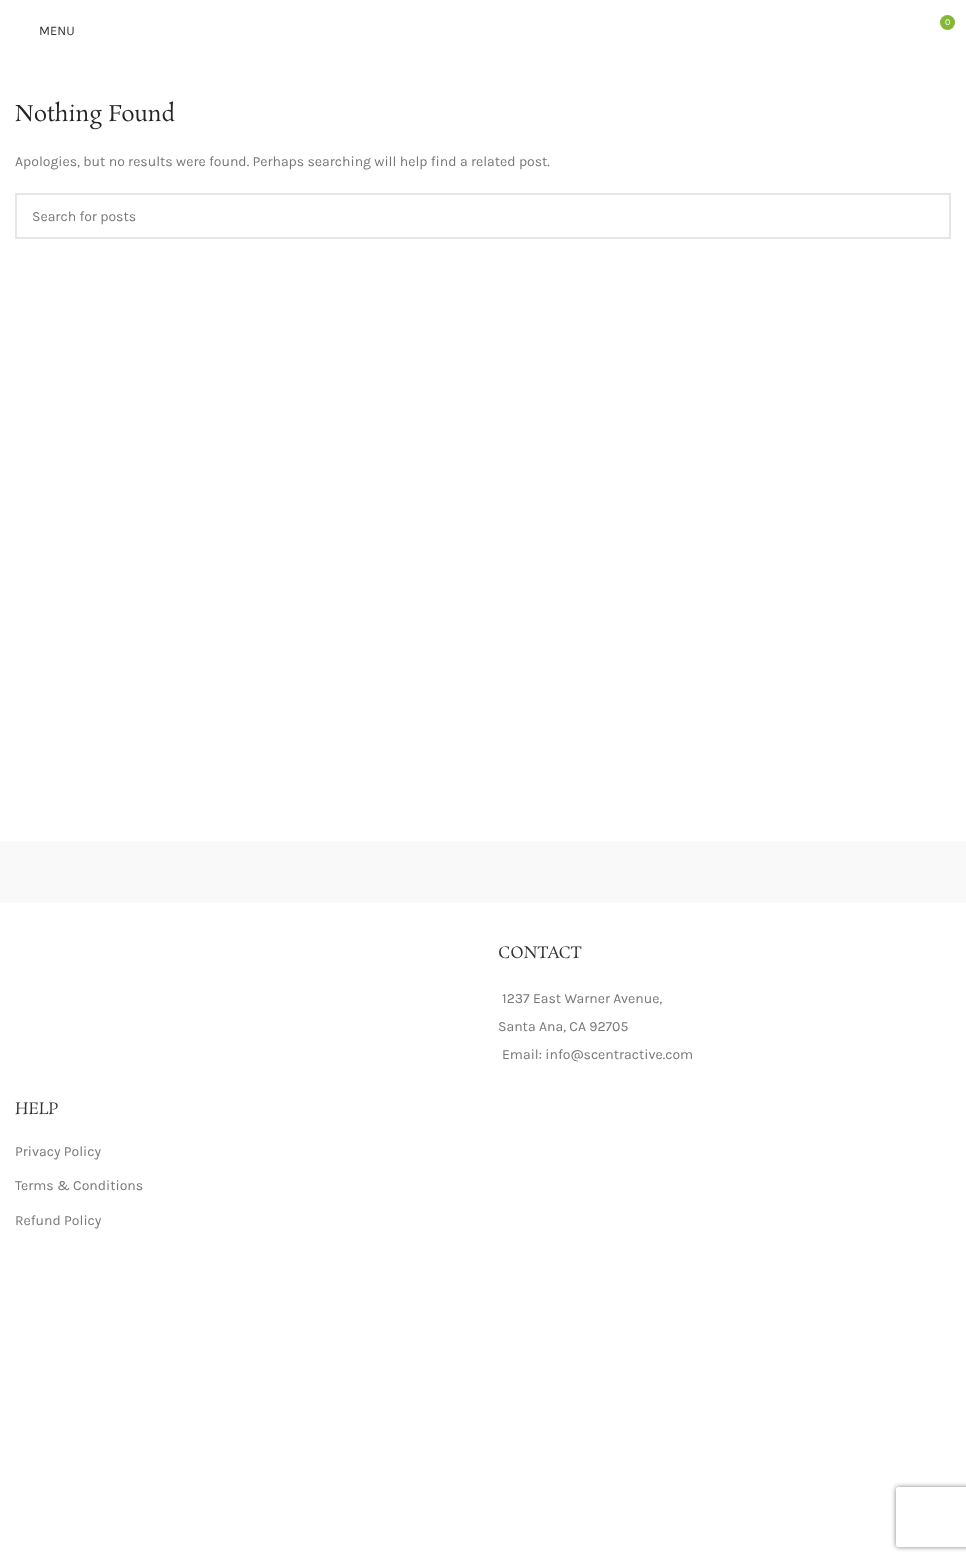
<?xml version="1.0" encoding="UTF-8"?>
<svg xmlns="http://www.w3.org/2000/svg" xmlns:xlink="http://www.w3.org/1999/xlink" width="966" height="1561">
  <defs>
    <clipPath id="clip1"><path d="M 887 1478 h 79 v 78 h -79 z m 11 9 h 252 c 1 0 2 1 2 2 v 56 c 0 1 -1 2 -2 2 h -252 c -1 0 -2 -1 -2 -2 v -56 c 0 -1 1 -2 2 -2 z" clip-rule="evenodd" /></clipPath>
  </defs>
  <rect width="100%" height="100%" fill="#ffffff" />
  <circle cx="947.5" cy="22.5" r="7.5" fill="#83b735" />
  <rect x="16" y="194" width="934" height="44" fill="none" stroke="#e6e6e6" stroke-width="2" />
  <rect y="841" width="966" height="62" fill="#f9f9f9" />
  <g clip-path="url(#clip1)">
    <rect x="896" y="1487" width="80" height="60" rx="2" fill="#808080" filter="blur(2.5px)" />
  </g>
  <text x="945" y="25" style="font-family: Karla; font-size: 9px; fill: #ffffff">0</text>
  <text x="39" y="35" style="font-family: Karla; font-size: 13px; fill: #333333">MENU</text>
  <text x="15" y="121" style="font-family: Rosarivo; font-size: 22px; fill: #242424">Nothing Found</text>
  <text x="15" y="166" style="font-family: Karla; font-size: 14px; fill: #767676">Apologies, but no results were found. Perhaps searching will help find a related post.</text>
  <text x="32" y="221" style="font-family: Karla; font-size: 14px; fill: #767676">Search for posts</text>
  <text x="498" y="958" style="font-family: Rosarivo; font-size: 16px; fill: #333333">CONTACT</text>
  <text x="502" y="1003" style="font-family: Karla; font-size: 14px; fill: #767676">1237 East Warner Avenue,</text>
  <text x="498" y="1031" style="font-family: Karla; font-size: 14px; fill: #767676">Santa Ana, CA 92705</text>
  <text x="502" y="1059" style="font-family: Karla; font-size: 14px; fill: #767676">Email: info@scentractive.com</text>
  <text x="15" y="1114" style="font-family: Rosarivo; font-size: 16px; fill: #333333">HELP</text>
  <text x="15" y="1156" style="font-family: Karla; font-size: 14px; fill: #767676">Privacy Policy</text>
  <text x="15" y="1190" style="font-family: Karla; font-size: 14px; fill: #767676">Terms &amp; Conditions</text>
  <text x="15" y="1225" style="font-family: Karla; font-size: 14px; fill: #767676">Refund Policy</text>
</svg>
